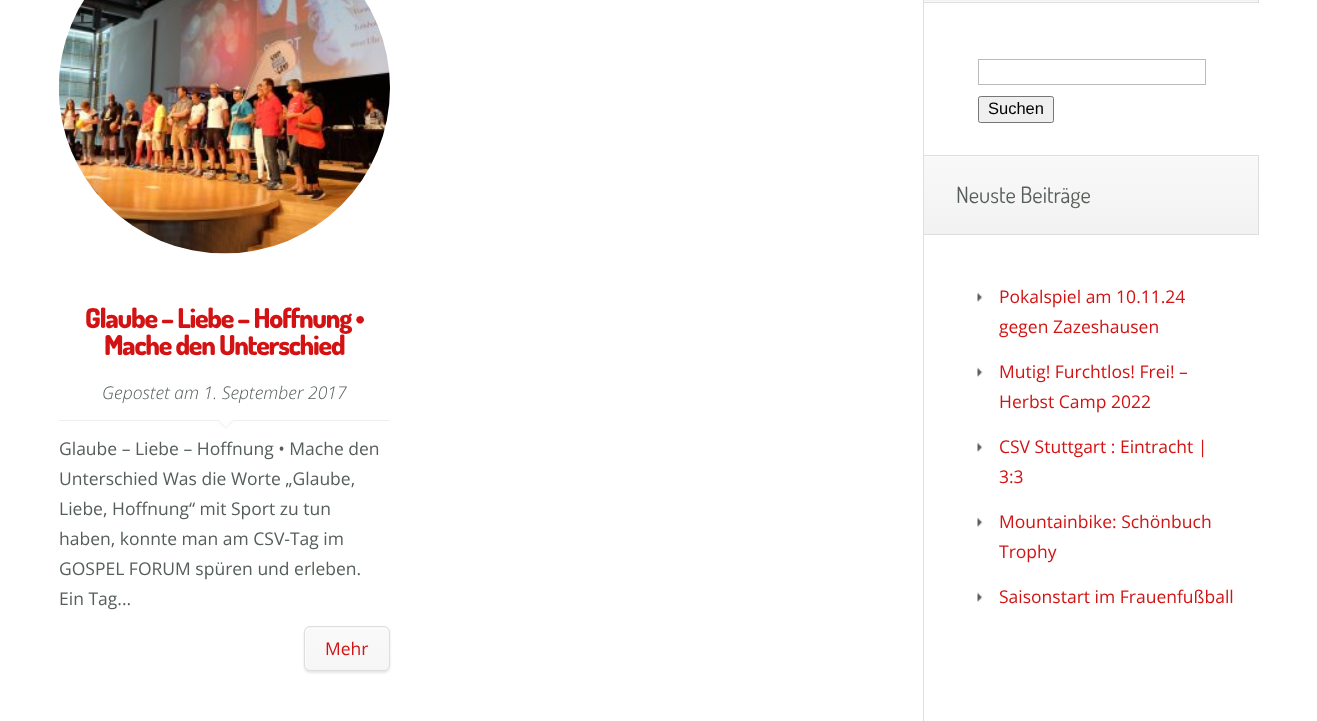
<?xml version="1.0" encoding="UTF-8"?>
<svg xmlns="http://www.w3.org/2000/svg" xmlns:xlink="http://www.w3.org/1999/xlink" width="1317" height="721">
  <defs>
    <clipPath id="clip1"><rect x="304" y="626" width="86" height="45" rx="6" /></clipPath>
    <linearGradient id="g1" gradientUnits="userSpaceOnUse" x1="347" y1="585" x2="347" y2="628"><stop offset="0" stop-color="#f9f9f9" /><stop offset="1" stop-color="#f6f6f6" /><stop offset="1" stop-color="#f2f2f2" /></linearGradient>
    <linearGradient id="g2" gradientUnits="userSpaceOnUse" x1="347" y1="628" x2="347" y2="670"><stop offset="0" stop-color="#f9f9f9" /><stop offset="1" stop-color="#f6f6f6" /><stop offset="1" stop-color="#f2f2f2" /></linearGradient>
    <linearGradient id="g3" gradientUnits="userSpaceOnUse" x1="1091" y1="-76" x2="1091" y2="1.3"><stop offset="0" stop-color="#f9f9f9" /><stop offset="1" stop-color="#f2f2f2" /></linearGradient>
    <linearGradient id="g4" gradientUnits="userSpaceOnUse" x1="1091" y1="1.2" x2="1091" y2="79"><stop offset="0" stop-color="#f9f9f9" /><stop offset="1" stop-color="#f2f2f2" /></linearGradient>
    <linearGradient id="g5" gradientUnits="userSpaceOnUse" x1="1091" y1="156" x2="1091" y2="234"><stop offset="0" stop-color="#f9f9f9" /><stop offset="1" stop-color="#f2f2f2" /></linearGradient>
  </defs>
  <rect width="100%" height="100%" fill="#ffffff" />
  <image x="58" y="0" width="332" height="254" xlink:href="image1.png" />
  <rect x="59" y="420" width="331" height="1" fill="#f0efef" />
  <image x="218" y="420" width="16" height="9" xlink:href="image2.png" />
  <rect x="304" y="628" width="86" height="45" rx="6" fill="#000000" fill-opacity="0.1" filter="blur(1px)" />
  <g clip-path="url(#clip1)">
    <rect x="304" y="626" width="86" height="2" fill="url(#g1)" />
    <rect x="304" y="628" width="86" height="42" fill="url(#g2)" />
  </g>
  <path d="M 311 629 h 74 l 3 1 c -1 -1 -3 -2 -4 -2 h -74 c -3 0 -5 2 -5 5 v 32 c 0 1 1 3 2 4 l -1 -3 v -32 c 0 -3 2 -5 5 -5 z" fill="#fcfcfc" />
  <rect x="304.5" y="626.5" width="85" height="44" rx="5.5" fill="none" stroke="#e0dddd" />
  <rect x="923" width="336" height="1" fill="url(#g3)" />
  <rect x="923" y="1" width="336" height="1" fill="url(#g4)" />
  <rect x="923.5" y="-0.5" width="335" height="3" fill="none" stroke="#e0dddd" />
  <rect x="924" y="157" width="334" height="77" fill="url(#g5)" />
  <rect x="924" y="156" width="334" height="1" fill="#fcfcfc" />
  <rect x="923.5" y="155.5" width="335" height="79" fill="none" stroke="#e0dddd" />
  <rect x="923" width="1" height="721" fill="#e0dddd" />
  <rect x="978.5" y="59.5" width="227" height="25" fill="none" stroke="#bbbbbb" />
  <rect x="978.5" y="96.5" width="75" height="26" rx="2" fill="#efefef" stroke="#767676" />
  <image x="977" y="292" width="6" height="10" xlink:href="image3.png" />
  <image x="977" y="367" width="6" height="10" xlink:href="image3.png" />
  <image x="977" y="442" width="6" height="10" xlink:href="image3.png" />
  <image x="977" y="517" width="6" height="10" xlink:href="image3.png" />
  <image x="977" y="592" width="6" height="10" xlink:href="image3.png" />
  <text x="85" y="328" style="font-family: Dosis; font-size: 27.5px; font-weight: 800; letter-spacing: -1.25px; fill: #d31313">Glaube – Liebe – Hoffnung •</text>
  <text x="104" y="355" style="font-family: Dosis; font-size: 27.5px; font-weight: 800; letter-spacing: -1.25px; fill: #d31313">Mache den Unterschied</text>
  <text x="102" y="399" style="font-family: Open Sans; font-size: 17.5px; font-weight: 300; font-style: italic; fill: #555e58">Gepostet am 1. September 2017</text>
  <text x="59" y="455" style="font-family: Open Sans; font-size: 17.5px; fill: #555e58">Glaube – Liebe – Hoffnung • Mache den</text>
  <text x="59" y="485" style="font-family: Open Sans; font-size: 17.5px; fill: #555e58">Unterschied Was die Worte „Glaube,</text>
  <text x="59" y="515" style="font-family: Open Sans; font-size: 17.5px; fill: #555e58">Liebe, Hoffnung“ mit Sport zu tun</text>
  <text x="59" y="545" style="font-family: Open Sans; font-size: 17.5px; fill: #555e58">haben, konnte man am CSV-Tag im</text>
  <text x="59" y="575" style="font-family: Open Sans; font-size: 17.5px; fill: #555e58">GOSPEL FORUM spüren und erleben.</text>
  <text x="59" y="605" style="font-family: Open Sans; font-size: 17.5px; fill: #555e58">Ein Tag...</text>
  <text x="325" y="655" style="font-family: Open Sans; font-size: 17.5px; fill: #d31313">Mehr</text>
  <text x="988" y="114" style="font-family: Liberation Sans; font-size: 16.5px; fill: #000000">Suchen</text>
  <text x="956" y="203" style="font-family: Dosis; font-size: 22.5px; fill: #555e58">Neuste Beiträge</text>
  <text x="999" y="303" style="font-family: Open Sans; font-size: 17.5px; fill: #d31313">Pokalspiel am 10.11.24</text>
  <text x="999" y="333" style="font-family: Open Sans; font-size: 17.5px; fill: #d31313">gegen Zazeshausen</text>
  <text x="999" y="378" style="font-family: Open Sans; font-size: 17.5px; fill: #d31313">Mutig! Furchtlos! Frei! –</text>
  <text x="999" y="408" style="font-family: Open Sans; font-size: 17.5px; fill: #d31313">Herbst Camp 2022</text>
  <text x="999" y="453" style="font-family: Open Sans; font-size: 17.5px; fill: #d31313">CSV Stuttgart : Eintracht |</text>
  <text x="999" y="483" style="font-family: Open Sans; font-size: 17.5px; fill: #d31313">3:3</text>
  <text x="999" y="528" style="font-family: Open Sans; font-size: 17.5px; fill: #d31313">Mountainbike: Schönbuch</text>
  <text x="999" y="558" style="font-family: Open Sans; font-size: 17.5px; fill: #d31313">Trophy</text>
  <text x="999" y="603" style="font-family: Open Sans; font-size: 17.5px; fill: #d31313">Saisonstart im Frauenfußball</text>
</svg>
